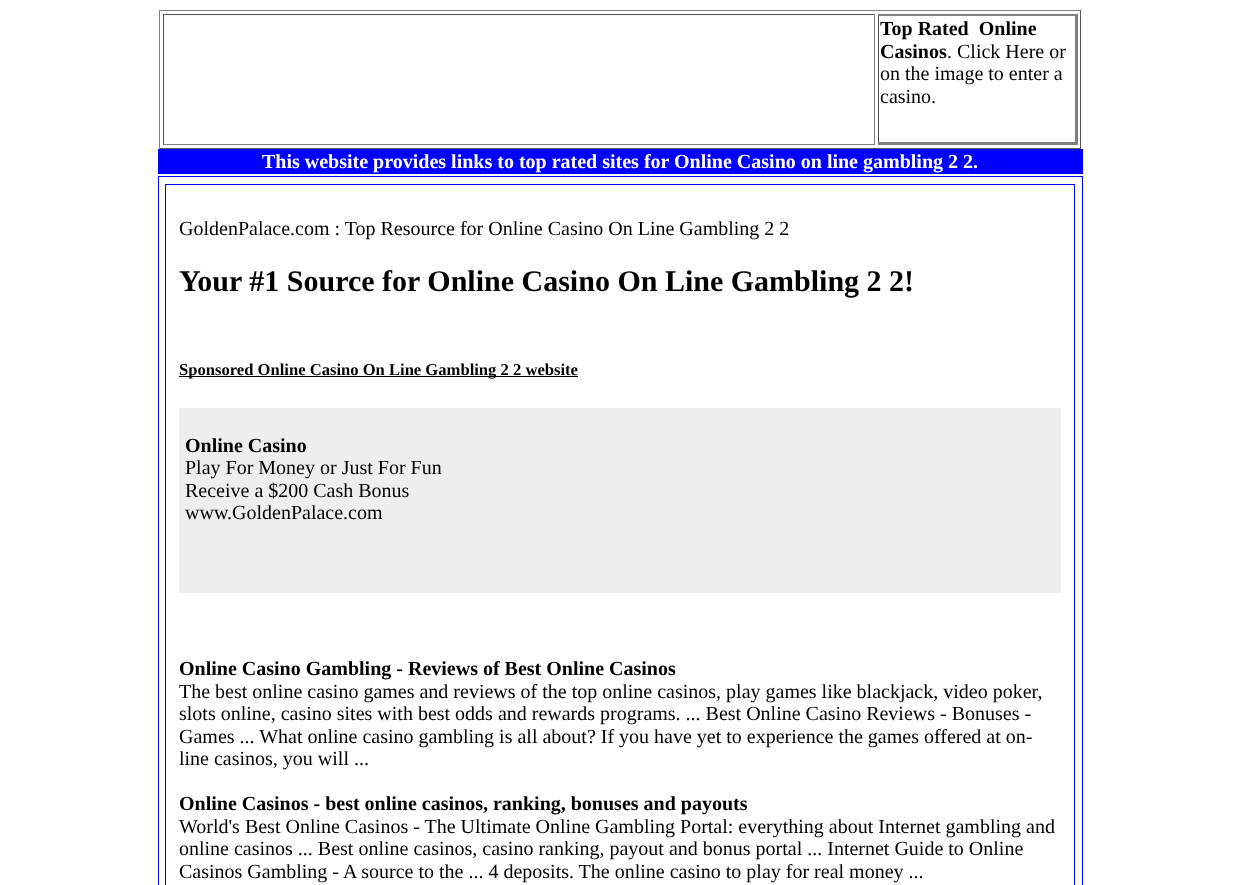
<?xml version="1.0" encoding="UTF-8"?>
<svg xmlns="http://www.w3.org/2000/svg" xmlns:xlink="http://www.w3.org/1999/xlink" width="1239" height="885">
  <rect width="100%" height="100%" fill="#ffffff" />
  <rect x="159" y="10" width="922" height="1" fill="#808080" />
  <rect x="1080" y="10" width="1" height="139" fill="#555555" />
  <rect x="159" y="148" width="922" height="1" fill="#555555" />
  <rect x="159" y="10" width="1" height="139" fill="#808080" />
  <rect x="163" y="14" width="712" height="1" fill="#555555" />
  <rect x="874" y="14" width="1" height="131" fill="#808080" />
  <rect x="163" y="144" width="712" height="1" fill="#808080" />
  <rect x="163" y="14" width="1" height="131" fill="#555555" />
  <path d="M 878 14 h 200 l -3 2 h -196 z" fill="#808080" />
  <rect x="1075" y="14" width="3" height="131" fill="#808080" />
  <path d="M 1078 145 h -200 l 1 -3 h 196 z" fill="#808080" />
  <path d="M 878 145 v -131 l 1 2 v 126 z" fill="#555555" />
  <rect x="158" y="149" width="925" height="25" fill="#0000ff" />
  <rect x="158.5" y="176.5" width="924" height="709" fill="none" stroke="#0000ff" />
  <rect x="165.5" y="184.5" width="909" height="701" fill="none" stroke="#0000ff" />
  <rect x="179" y="376" width="399" height="1" fill="#000000" />
  <rect x="179" y="408" width="882" height="185" fill="#eeeeee" />
  <text x="880" y="35" style="font-family: Liberation Serif; font-size: 20px; font-weight: bold; fill: #000000" xml:space="preserve">Top Rated  Online</text>
  <text x="880" y="58" style="font-family: Liberation Serif; font-size: 20px; font-weight: bold; fill: #000000">Casinos</text>
  <text x="947" y="58" style="font-family: Liberation Serif; font-size: 20px; fill: #000000">. Click Here or</text>
  <text x="880" y="80" style="font-family: Liberation Serif; font-size: 20px; fill: #000000">on the image to enter a</text>
  <text x="880" y="103" style="font-family: Liberation Serif; font-size: 20px; fill: #000000">casino.</text>
  <text x="262" y="168" style="font-family: Liberation Serif; font-size: 20px; font-weight: bold; fill: #ffffff">This website provides links to top rated sites for Online Casino on line gambling 2 2.</text>
  <text x="179" y="235" style="font-family: Liberation Serif; font-size: 20px; fill: #000000">GoldenPalace.com : Top Resource for Online Casino On Line Gambling 2 2</text>
  <text x="179" y="291" style="font-family: Liberation Serif; font-size: 30px; font-weight: bold; fill: #000000">Your #1 Source for Online Casino On Line Gambling 2 2!</text>
  <text x="179" y="375" style="font-family: Liberation Serif; font-size: 16.6px; font-weight: bold; fill: #000000">Sponsored Online Casino On Line Gambling 2 2 website</text>
  <text x="185" y="452" style="font-family: Liberation Serif; font-size: 20px; font-weight: bold; fill: #000000">Online Casino</text>
  <text x="185" y="474" style="font-family: Liberation Serif; font-size: 20px; fill: #000000">Play For Money or Just For Fun</text>
  <text x="185" y="497" style="font-family: Liberation Serif; font-size: 20px; fill: #000000">Receive a $200 Cash Bonus</text>
  <text x="185" y="519" style="font-family: Liberation Serif; font-size: 20px; fill: #000000">www.GoldenPalace.com</text>
  <text x="179" y="675" style="font-family: Liberation Serif; font-size: 20px; font-weight: bold; fill: #000000">Online Casino Gambling - Reviews of Best Online Casinos</text>
  <text x="179" y="698" style="font-family: Liberation Serif; font-size: 20px; fill: #000000">The best online casino games and reviews of the top online casinos, play games like blackjack, video poker,</text>
  <text x="179" y="720" style="font-family: Liberation Serif; font-size: 20px; fill: #000000">slots online, casino sites with best odds and rewards programs. ... Best Online Casino Reviews - Bonuses -</text>
  <text x="179" y="743" style="font-family: Liberation Serif; font-size: 20px; fill: #000000">Games ... What online casino gambling is all about? If you have yet to experience the games offered at on-</text>
  <text x="179" y="765" style="font-family: Liberation Serif; font-size: 20px; fill: #000000">line casinos, you will ...</text>
  <text x="179" y="810" style="font-family: Liberation Serif; font-size: 20px; font-weight: bold; fill: #000000">Online Casinos - best online casinos, ranking, bonuses and payouts</text>
  <text x="179" y="833" style="font-family: Liberation Serif; font-size: 20px; fill: #000000">World's Best Online Casinos - The Ultimate Online Gambling Portal: everything about Internet gambling and</text>
  <text x="179" y="855" style="font-family: Liberation Serif; font-size: 20px; fill: #000000">online casinos ... Best online casinos, casino ranking, payout and bonus portal ... Internet Guide to Online</text>
  <text x="179" y="878" style="font-family: Liberation Serif; font-size: 20px; fill: #000000">Casinos Gambling - A source to the ... 4 deposits. The online casino to play for real money ...</text>
</svg>
